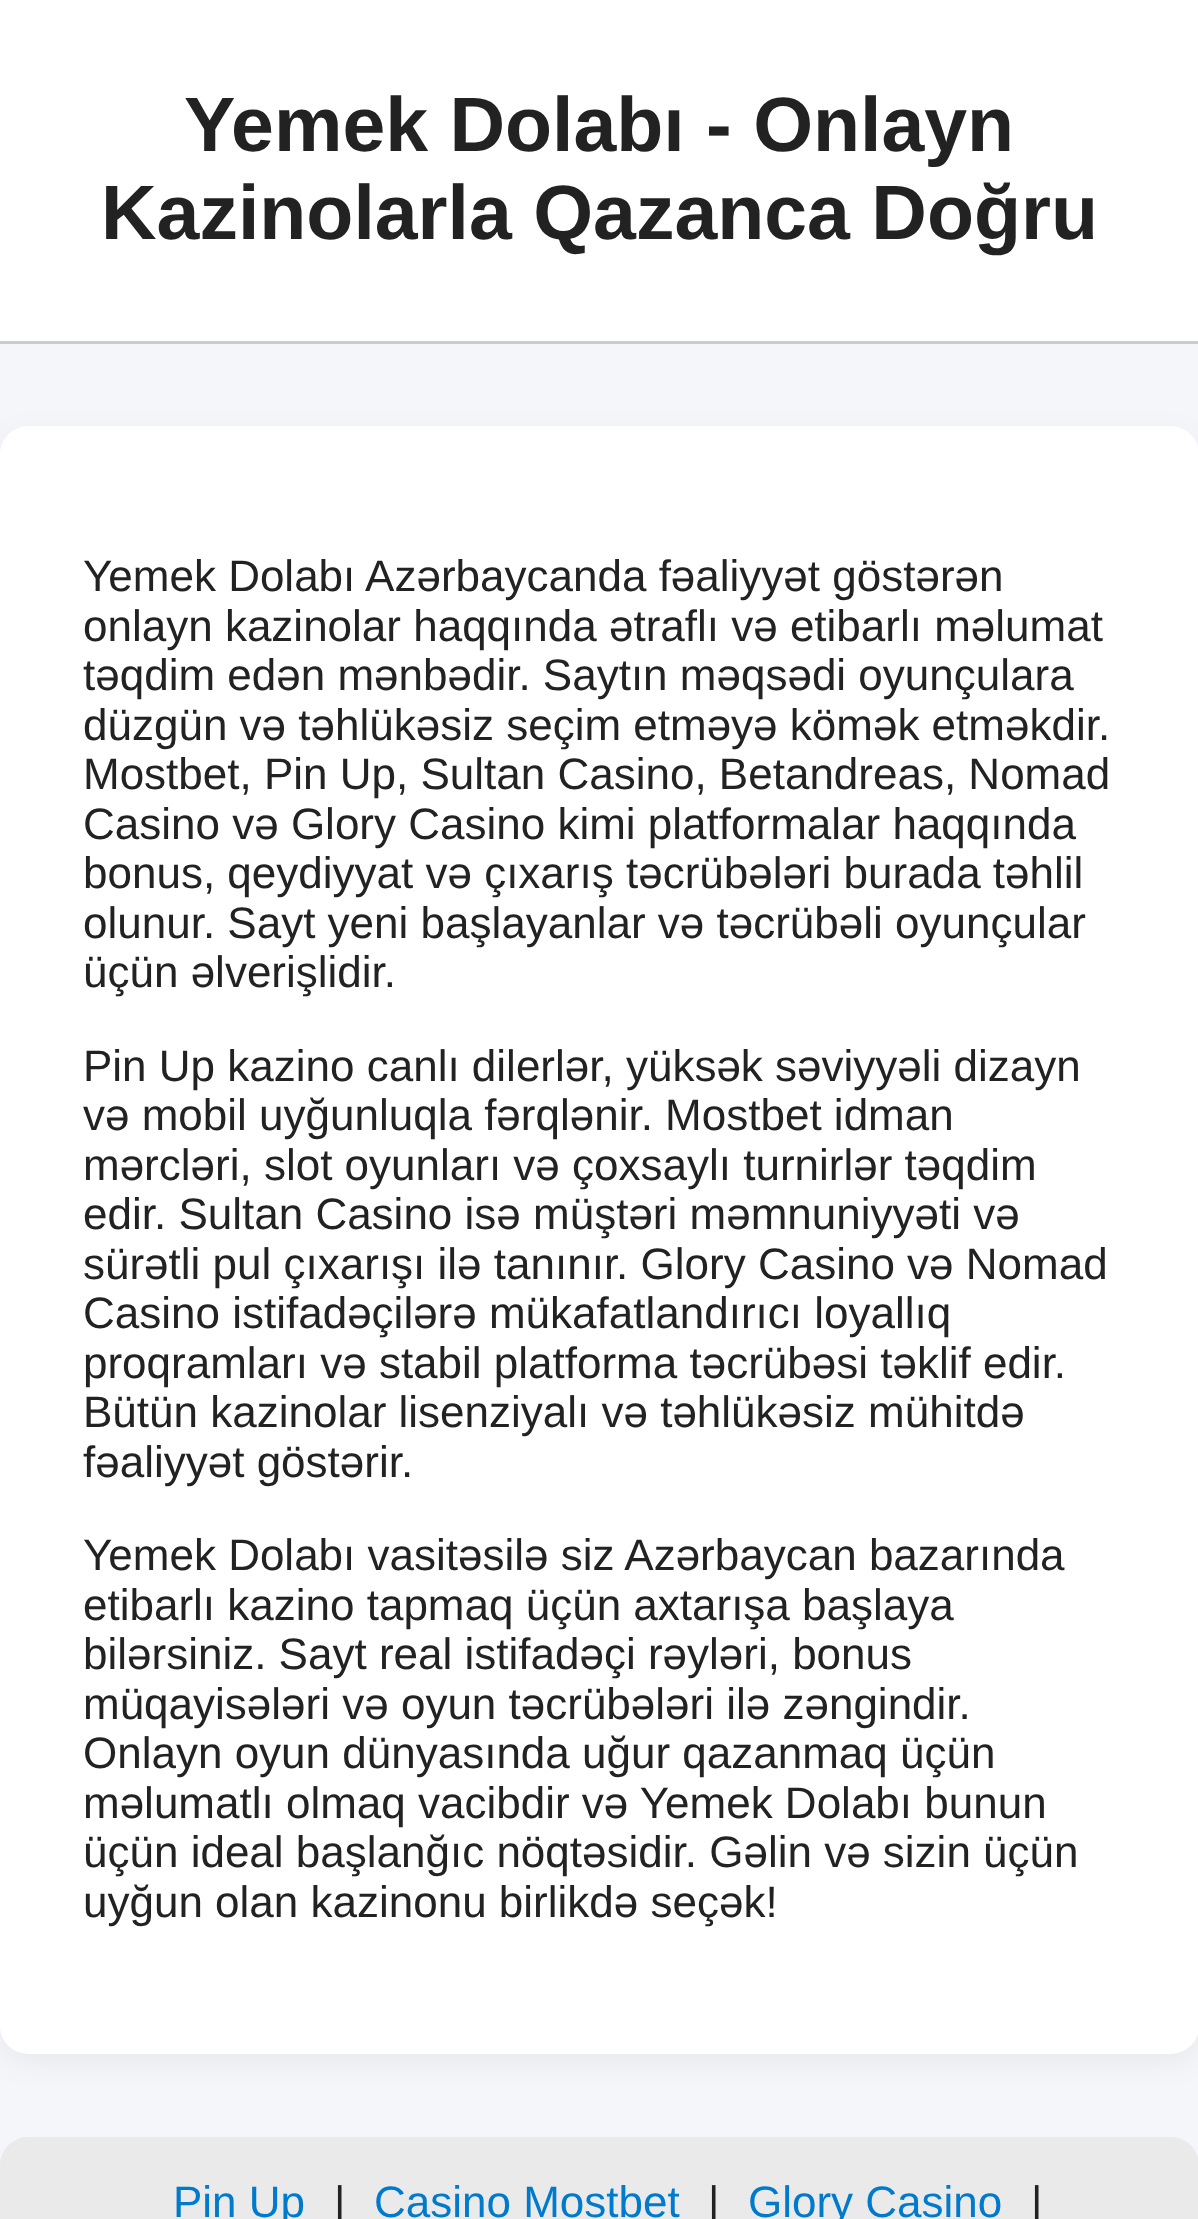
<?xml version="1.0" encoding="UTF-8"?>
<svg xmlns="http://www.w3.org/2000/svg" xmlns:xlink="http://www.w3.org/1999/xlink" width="1198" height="2219">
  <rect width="100%" height="100%" fill="#f4f6f9" />
  <rect width="1198" height="341" fill="#ffffff" />
  <rect y="341" width="1198" height="3" fill="#cccccc" />
  <rect y="435" width="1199" height="1628" rx="28" fill="#000000" fill-opacity="0.05" filter="blur(14px)" />
  <rect y="426" width="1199" height="1628" rx="28" fill="#ffffff" />
  <rect y="2137" width="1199" height="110" rx="28" fill="#eaeaea" />
  <text x="184" y="151" style="font-family: Liberation Sans; font-size: 77px; font-weight: bold; fill: #222222">Yemek Dolabı - Onlayn</text>
  <text x="101" y="239" style="font-family: Liberation Sans; font-size: 77px; font-weight: bold; fill: #222222">Kazinolarla Qazanca Doğru</text>
  <text x="83" y="591" style="font-family: Liberation Sans; font-size: 44px; fill: #222222">Yemek Dolabı Azərbaycanda fəaliyyət göstərən</text>
  <text x="83" y="641" style="font-family: Liberation Sans; font-size: 44px; fill: #222222">onlayn kazinolar haqqında ətraflı və etibarlı məlumat</text>
  <text x="83" y="690" style="font-family: Liberation Sans; font-size: 44px; fill: #222222">təqdim edən mənbədir. Saytın məqsədi oyunçulara</text>
  <text x="83" y="740" style="font-family: Liberation Sans; font-size: 44px; fill: #222222">düzgün və təhlükəsiz seçim etməyə kömək etməkdir.</text>
  <text x="83" y="789" style="font-family: Liberation Sans; font-size: 44px; fill: #222222">Mostbet, Pin Up, Sultan Casino, Betandreas, Nomad</text>
  <text x="83" y="839" style="font-family: Liberation Sans; font-size: 44px; fill: #222222">Casino və Glory Casino kimi platformalar haqqında</text>
  <text x="83" y="888" style="font-family: Liberation Sans; font-size: 44px; fill: #222222">bonus, qeydiyyat və çıxarış təcrübələri burada təhlil</text>
  <text x="83" y="938" style="font-family: Liberation Sans; font-size: 44px; fill: #222222">olunur. Sayt yeni başlayanlar və təcrübəli oyunçular</text>
  <text x="83" y="987" style="font-family: Liberation Sans; font-size: 44px; fill: #222222">üçün əlverişlidir.</text>
  <text x="83" y="1081" style="font-family: Liberation Sans; font-size: 44px; fill: #222222">Pin Up kazino canlı dilerlər, yüksək səviyyəli dizayn</text>
  <text x="83" y="1130" style="font-family: Liberation Sans; font-size: 44px; fill: #222222">və mobil uyğunluqla fərqlənir. Mostbet idman</text>
  <text x="83" y="1180" style="font-family: Liberation Sans; font-size: 44px; fill: #222222">mərcləri, slot oyunları və çoxsaylı turnirlər təqdim</text>
  <text x="83" y="1229" style="font-family: Liberation Sans; font-size: 44px; fill: #222222">edir. Sultan Casino isə müştəri məmnuniyyəti və</text>
  <text x="83" y="1279" style="font-family: Liberation Sans; font-size: 44px; fill: #222222">sürətli pul çıxarışı ilə tanınır. Glory Casino və Nomad</text>
  <text x="83" y="1328" style="font-family: Liberation Sans; font-size: 44px; fill: #222222">Casino istifadəçilərə mükafatlandırıcı loyallıq</text>
  <text x="83" y="1378" style="font-family: Liberation Sans; font-size: 44px; fill: #222222">proqramları və stabil platforma təcrübəsi təklif edir.</text>
  <text x="83" y="1427" style="font-family: Liberation Sans; font-size: 44px; fill: #222222">Bütün kazinolar lisenziyalı və təhlükəsiz mühitdə</text>
  <text x="83" y="1477" style="font-family: Liberation Sans; font-size: 44px; fill: #222222">fəaliyyət göstərir.</text>
  <text x="83" y="1570" style="font-family: Liberation Sans; font-size: 44px; fill: #222222">Yemek Dolabı vasitəsilə siz Azərbaycan bazarında</text>
  <text x="83" y="1620" style="font-family: Liberation Sans; font-size: 44px; fill: #222222">etibarlı kazino tapmaq üçün axtarışa başlaya</text>
  <text x="83" y="1669" style="font-family: Liberation Sans; font-size: 44px; fill: #222222">bilərsiniz. Sayt real istifadəçi rəyləri, bonus</text>
  <text x="83" y="1719" style="font-family: Liberation Sans; font-size: 44px; fill: #222222">müqayisələri və oyun təcrübələri ilə zəngindir.</text>
  <text x="83" y="1768" style="font-family: Liberation Sans; font-size: 44px; fill: #222222">Onlayn oyun dünyasında uğur qazanmaq üçün</text>
  <text x="83" y="1818" style="font-family: Liberation Sans; font-size: 44px; fill: #222222">məlumatlı olmaq vacibdir və Yemek Dolabı bunun</text>
  <text x="83" y="1867" style="font-family: Liberation Sans; font-size: 44px; fill: #222222">üçün ideal başlanğıc nöqtəsidir. Gəlin və sizin üçün</text>
  <text x="83" y="1917" style="font-family: Liberation Sans; font-size: 44px; fill: #222222">uyğun olan kazinonu birlikdə seçək!</text>
  <text x="173" y="2217" style="font-family: Liberation Sans; font-size: 44px; fill: #007acc">Pin Up</text>
  <text x="334" y="2217" style="font-family: Liberation Sans; font-size: 44px; fill: #222222">|</text>
  <text x="374" y="2217" style="font-family: Liberation Sans; font-size: 44px; fill: #007acc">Casino Mostbet</text>
  <text x="708" y="2217" style="font-family: Liberation Sans; font-size: 44px; fill: #222222">|</text>
  <text x="748" y="2217" style="font-family: Liberation Sans; font-size: 44px; fill: #007acc">Glory Casino</text>
  <text x="1031" y="2217" style="font-family: Liberation Sans; font-size: 44px; fill: #222222">|</text>
</svg>
